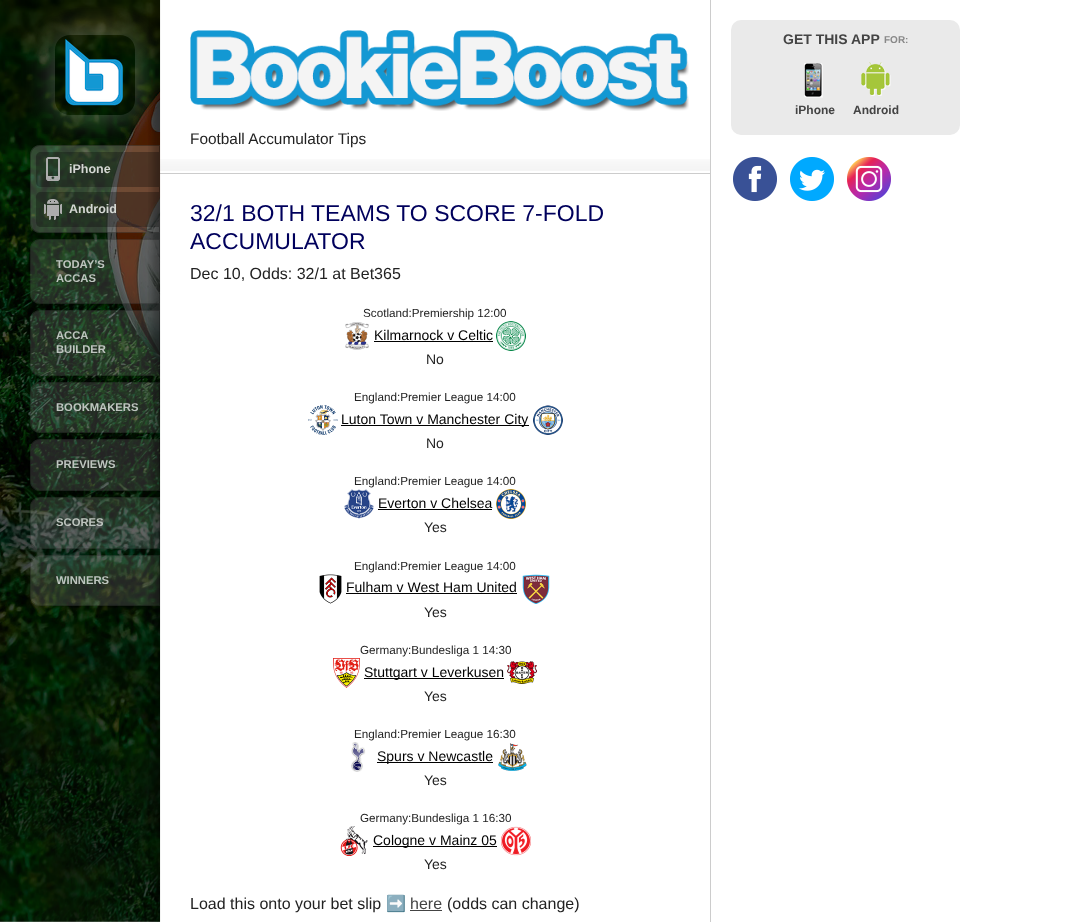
<?xml version="1.0" encoding="UTF-8"?>
<svg xmlns="http://www.w3.org/2000/svg" xmlns:xlink="http://www.w3.org/1999/xlink" width="1067" height="922">
  <defs>
    <clipPath id="clip1"><path d="M 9 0 h 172 v 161 h -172 z m 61 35 h 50 c 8.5 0 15 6.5 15 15 v 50 c 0 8.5 -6.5 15 -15 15 h -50 c -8.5 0 -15 -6.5 -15 -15 v -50 c 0 -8.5 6.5 -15 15 -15 z" clip-rule="evenodd" /></clipPath>
  </defs>
  <rect width="100%" height="100%" fill="#ffffff" />
  <image x="160" y="159" width="550" height="15" xlink:href="image12.png" />
  <image x="0" y="0" width="161" height="922" xlink:href="image1.png" />
  <g clip-path="url(#clip1)">
    <rect x="55" y="35" width="80" height="80" rx="15" fill="#ffffff" fill-opacity="0.3" filter="blur(15px)" />
  </g>
  <image x="65" y="39" width="58" height="67" xlink:href="image2.png" />
  <path d="M 40 145 h 120 v 88 h -120 c -5.5 0 -10 -4.5 -10 -10 v -68 c 0 -5.5 4.5 -10 10 -10 z" fill="#ffffff" fill-opacity="0.2" />
  <path d="M 40 145.5 h 119.5 v 87 h -119.5 c -5 0 -9.5 -4.5 -9.5 -9.5 v -68 c 0 -5 4.5 -9.5 9.5 -9.5 z" fill="none" stroke="#000000" stroke-opacity="0.3" />
  <path d="M 41 152 h 118 v 35 h -118 c -3 0 -5 -2 -5 -5 v -25 c 0 -3 2 -5 5 -5 z" fill="#000000" fill-opacity="0.29" />
  <image x="46" y="157" width="14" height="24" xlink:href="image3.png" />
  <path d="M 41 192 h 118 v 35 h -118 c -3 0 -5 -2 -5 -5 v -25 c 0 -3 2 -5 5 -5 z" fill="#000000" fill-opacity="0.29" />
  <image x="44" y="199" width="18" height="21" xlink:href="image4.png" />
  <path d="M 40 239 h 120 v 65 h -120 c -5.5 0 -10 -4.5 -10 -10 v -45 c 0 -5.5 4.5 -10 10 -10 z" fill="#ffffff" fill-opacity="0.14" />
  <path d="M 40 239.5 h 119.5 v 64 h -119.5 c -5 0 -9.5 -4.5 -9.5 -9.5 v -45 c 0 -5 4.5 -9.5 9.5 -9.5 z" fill="none" stroke="#000000" stroke-opacity="0.21" />
  <path d="M 40 310 h 120 v 66 h -120 c -5.5 0 -10 -4.5 -10 -10 v -46 c 0 -5.5 4.5 -10 10 -10 z" fill="#ffffff" fill-opacity="0.14" />
  <path d="M 40 310.5 h 119.5 v 65 h -119.5 c -5 0 -9.5 -4.5 -9.5 -9.5 v -46 c 0 -5 4.5 -9.5 9.5 -9.5 z" fill="none" stroke="#000000" stroke-opacity="0.21" />
  <path d="M 40 382 h 120 v 51 h -120 c -5.5 0 -10 -4.5 -10 -10 v -31 c 0 -5.5 4.5 -10 10 -10 z" fill="#ffffff" fill-opacity="0.14" />
  <path d="M 40 382.5 h 119.5 v 50 h -119.5 c -5 0 -9.5 -4.5 -9.5 -9.5 v -31 c 0 -5 4.5 -9.5 9.5 -9.5 z" fill="none" stroke="#000000" stroke-opacity="0.21" />
  <path d="M 40 439 h 120 v 52 h -120 c -5.5 0 -10 -4.5 -10 -10 v -32 c 0 -5.5 4.5 -10 10 -10 z" fill="#ffffff" fill-opacity="0.14" />
  <path d="M 40 439.5 h 119.5 v 51 h -119.5 c -5 0 -9.5 -4.5 -9.5 -9.5 v -32 c 0 -5 4.5 -9.5 9.5 -9.5 z" fill="none" stroke="#000000" stroke-opacity="0.21" />
  <path d="M 40 497 h 120 v 52 h -120 c -5.5 0 -10 -4.5 -10 -10 v -32 c 0 -5.5 4.5 -10 10 -10 z" fill="#ffffff" fill-opacity="0.14" />
  <path d="M 40 497.5 h 119.5 v 51 h -119.5 c -5 0 -9.5 -4.5 -9.5 -9.5 v -32 c 0 -5 4.5 -9.5 9.5 -9.5 z" fill="none" stroke="#000000" stroke-opacity="0.21" />
  <path d="M 40 555 h 120 v 51 h -120 c -5.5 0 -10 -4.5 -10 -10 v -31 c 0 -5.5 4.5 -10 10 -10 z" fill="#ffffff" fill-opacity="0.14" />
  <path d="M 40 555.5 h 119.5 v 50 h -119.5 c -5 0 -9.5 -4.5 -9.5 -9.5 v -31 c 0 -5 4.5 -9.5 9.5 -9.5 z" fill="none" stroke="#000000" stroke-opacity="0.21" />
  <image x="148" y="0" width="12" height="922" xlink:href="image5.png" />
  <rect x="731" y="20" width="229" height="115" rx="10" fill="#eaeaea" />
  <image x="804" y="63" width="19" height="35" xlink:href="image6.png" />
  <image x="861" y="62" width="30" height="34" xlink:href="image7.png" />
  <image x="733" y="157" width="44" height="44" xlink:href="image8.png" />
  <image x="790" y="157" width="44" height="44" xlink:href="image9.png" />
  <image x="847" y="157" width="44" height="44" xlink:href="image10.png" />
  <rect x="710" width="1" height="922" fill="#cccccc" />
  <image x="190" y="30" width="499" height="81" xlink:href="image11.png" />
  <image x="345" y="322" width="24" height="28" xlink:href="image13.png" />
  <rect x="374" y="341" width="119" height="1" fill="#000000" />
  <image x="496" y="321" width="30" height="30" xlink:href="image14.png" />
  <image x="308" y="405" width="30" height="30" xlink:href="image15.png" />
  <rect x="341" y="425" width="188" height="1" fill="#000000" />
  <image x="533" y="405" width="30" height="30" xlink:href="image16.png" />
  <image x="344" y="489" width="30" height="30" xlink:href="image17.png" />
  <rect x="378" y="509" width="114" height="1" fill="#000000" />
  <image x="496" y="489" width="30" height="30" xlink:href="image18.png" />
  <image x="319" y="574" width="23" height="30" xlink:href="image19.png" />
  <rect x="346" y="593" width="171" height="1" fill="#000000" />
  <image x="522" y="574" width="28" height="30" xlink:href="image20.png" />
  <image x="333" y="658" width="27" height="30" xlink:href="image21.png" />
  <rect x="364" y="678" width="140" height="1" fill="#000000" />
  <image x="507" y="661" width="30" height="23" xlink:href="image22.png" />
  <image x="351" y="742" width="15" height="30" xlink:href="image23.png" />
  <rect x="377" y="762" width="116" height="1" fill="#000000" />
  <image x="498" y="743" width="29" height="28" xlink:href="image24.png" />
  <image x="340" y="826" width="28" height="30" xlink:href="image25.png" />
  <rect x="373" y="846" width="124" height="1" fill="#000000" />
  <image x="501" y="826" width="30" height="30" xlink:href="image26.png" />
  <rect x="410" y="910" width="32" height="1" fill="#444444" />
  <text x="69" y="173" style="font-family: Liberation Sans; font-size: 12.5px; font-weight: bold; fill: #d4d7d3">iPhone</text>
  <text x="69" y="213" style="font-family: Liberation Sans; font-size: 12.5px; font-weight: bold; fill: #d4d7d3">Android</text>
  <text x="56" y="268" style="font-family: Liberation Sans; font-size: 11.25px; font-weight: bold; fill: #bec5bf">TODAY’S</text>
  <text x="56" y="282" style="font-family: Liberation Sans; font-size: 11.25px; font-weight: bold; fill: #bec5bf">ACCAS</text>
  <text x="56" y="339" style="font-family: Liberation Sans; font-size: 11.25px; font-weight: bold; fill: #bec5bf">ACCA</text>
  <text x="56" y="353" style="font-family: Liberation Sans; font-size: 11.25px; font-weight: bold; fill: #bec5bf">BUILDER</text>
  <text x="56" y="411" style="font-family: Liberation Sans; font-size: 11.25px; font-weight: bold; fill: #bec5bf">BOOKMAKERS</text>
  <text x="56" y="468" style="font-family: Liberation Sans; font-size: 11.25px; font-weight: bold; fill: #bec5bf">PREVIEWS</text>
  <text x="56" y="526" style="font-family: Liberation Sans; font-size: 11.25px; font-weight: bold; fill: #bec5bf">SCORES</text>
  <text x="56" y="584" style="font-family: Liberation Sans; font-size: 11.25px; font-weight: bold; fill: #bec5bf">WINNERS</text>
  <text x="783" y="44" style="font-family: Liberation Sans; font-size: 14px; font-weight: bold; fill: #444444">GET THIS APP</text>
  <text x="884" y="43" style="font-family: Liberation Sans; font-size: 10px; font-weight: bold; fill: #898989">FOR:</text>
  <text x="795" y="114" style="font-family: Liberation Sans; font-size: 12px; font-weight: bold; fill: #444444">iPhone</text>
  <text x="853" y="114" style="font-family: Liberation Sans; font-size: 12px; font-weight: bold; fill: #444444">Android</text>
  <text x="190" y="144" style="font-family: Liberation Sans; font-size: 15.4px; fill: #222222">Football Accumulator Tips</text>
  <text x="190" y="221" style="font-family: Liberation Sans; font-size: 23px; fill: #00005c">32/1 BOTH TEAMS TO SCORE 7-FOLD</text>
  <text x="190" y="249" style="font-family: Liberation Sans; font-size: 23px; fill: #00005c">ACCUMULATOR</text>
  <text x="190" y="279" style="font-family: Liberation Sans; font-size: 16px; fill: #222222">Dec 10, Odds: 32/1 at Bet365</text>
  <text x="363" y="317" style="font-family: Liberation Sans; font-size: 11.7px; fill: #222222">Scotland:Premiership 12:00</text>
  <text x="374" y="340" style="font-family: Liberation Sans; font-size: 14px; fill: #000000">Kilmarnock v Celtic</text>
  <text x="426" y="364" style="font-family: Liberation Sans; font-size: 14px; fill: #222222">No</text>
  <text x="354" y="401" style="font-family: Liberation Sans; font-size: 11.7px; fill: #222222">England:Premier League 14:00</text>
  <text x="341" y="424" style="font-family: Liberation Sans; font-size: 14px; fill: #000000">Luton Town v Manchester City</text>
  <text x="426" y="448" style="font-family: Liberation Sans; font-size: 14px; fill: #222222">No</text>
  <text x="354" y="485" style="font-family: Liberation Sans; font-size: 11.7px; fill: #222222">England:Premier League 14:00</text>
  <text x="378" y="508" style="font-family: Liberation Sans; font-size: 14px; fill: #000000">Everton v Chelsea</text>
  <text x="424" y="532" style="font-family: Liberation Sans; font-size: 14px; fill: #222222">Yes</text>
  <text x="354" y="570" style="font-family: Liberation Sans; font-size: 11.7px; fill: #222222">England:Premier League 14:00</text>
  <text x="346" y="592" style="font-family: Liberation Sans; font-size: 14px; fill: #000000">Fulham v West Ham United</text>
  <text x="424" y="617" style="font-family: Liberation Sans; font-size: 14px; fill: #222222">Yes</text>
  <text x="360" y="654" style="font-family: Liberation Sans; font-size: 11.7px; fill: #222222">Germany:Bundesliga 1 14:30</text>
  <text x="364" y="677" style="font-family: Liberation Sans; font-size: 14px; fill: #000000">Stuttgart v Leverkusen</text>
  <text x="424" y="701" style="font-family: Liberation Sans; font-size: 14px; fill: #222222">Yes</text>
  <text x="354" y="738" style="font-family: Liberation Sans; font-size: 11.7px; fill: #222222">England:Premier League 16:30</text>
  <text x="377" y="761" style="font-family: Liberation Sans; font-size: 14px; fill: #000000">Spurs v Newcastle</text>
  <text x="424" y="785" style="font-family: Liberation Sans; font-size: 14px; fill: #222222">Yes</text>
  <text x="360" y="822" style="font-family: Liberation Sans; font-size: 11.7px; fill: #222222">Germany:Bundesliga 1 16:30</text>
  <text x="373" y="845" style="font-family: Liberation Sans; font-size: 14px; fill: #000000">Cologne v Mainz 05</text>
  <text x="424" y="869" style="font-family: Liberation Sans; font-size: 14px; fill: #222222">Yes</text>
  <text x="190" y="909" style="font-family: Liberation Sans; font-size: 16px; fill: #222222">Load this onto your bet slip</text>
  <text x="386" y="909" style="font-family: Noto Color Emoji; font-size: 16px; fill: #222222">➡️</text>
  <text x="410" y="909" style="font-family: Liberation Sans; font-size: 16px; fill: #444444">here</text>
  <text x="447" y="909" style="font-family: Liberation Sans; font-size: 16px; fill: #222222">(odds can change)</text>
</svg>
